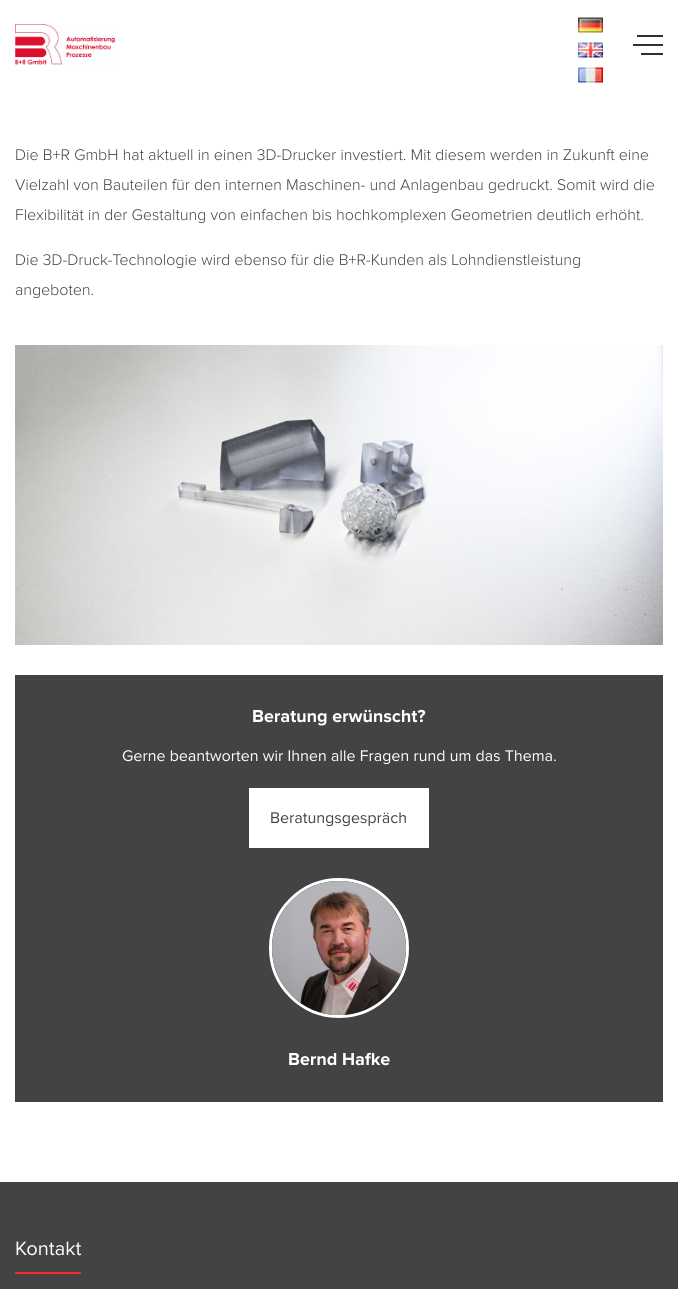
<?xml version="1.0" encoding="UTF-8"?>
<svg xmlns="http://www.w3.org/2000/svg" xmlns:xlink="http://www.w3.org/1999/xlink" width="678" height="1289">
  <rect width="100%" height="100%" fill="#ffffff" />
  <image x="15" y="24" width="100" height="41" xlink:href="image1.png" />
  <image x="578" y="17" width="25" height="16" xlink:href="image2.png" />
  <image x="578" y="42" width="25" height="16" xlink:href="image3.png" />
  <image x="578" y="67" width="25" height="16" xlink:href="image4.png" />
  <rect x="633" y="44" width="30" height="2" fill="#303030" />
  <rect x="637" y="35" width="26" height="2" fill="#303030" />
  <rect x="641" y="53" width="22" height="2" fill="#303030" />
  <image x="16" y="149" width="633" height="12" xlink:href="image5.png" />
  <image x="15" y="179" width="639" height="15" xlink:href="image6.png" />
  <image x="16" y="209" width="627" height="15" xlink:href="image7.png" />
  <image x="16" y="254" width="564" height="15" xlink:href="image8.png" />
  <image x="15" y="284" width="78" height="15" xlink:href="image9.png" />
  <image x="15" y="345" width="648" height="300" xlink:href="image10.png" />
  <rect x="15" y="675" width="648" height="427" fill="#434343" />
  <image x="253" y="709" width="173" height="17" xlink:href="image11.png" />
  <image x="122" y="750" width="434" height="15" xlink:href="image12.png" />
  <rect x="249" y="788" width="180" height="60" fill="#ffffff" />
  <image x="271" y="812" width="135" height="15" xlink:href="image13.png" />
  <circle cx="339" cy="948" r="68.5" fill="none" stroke="#ffffff" stroke-width="3" />
  <image x="272" y="881" width="134" height="134" xlink:href="image14.png" />
  <image x="289" y="1052" width="101" height="14" xlink:href="image15.png" />
  <rect y="1182" width="678" height="107" fill="#434343" />
  <rect x="15" y="1272" width="66" height="2" fill="#f62c32" />
  <image x="16" y="1241" width="66" height="15" xlink:href="image16.png" />
</svg>
